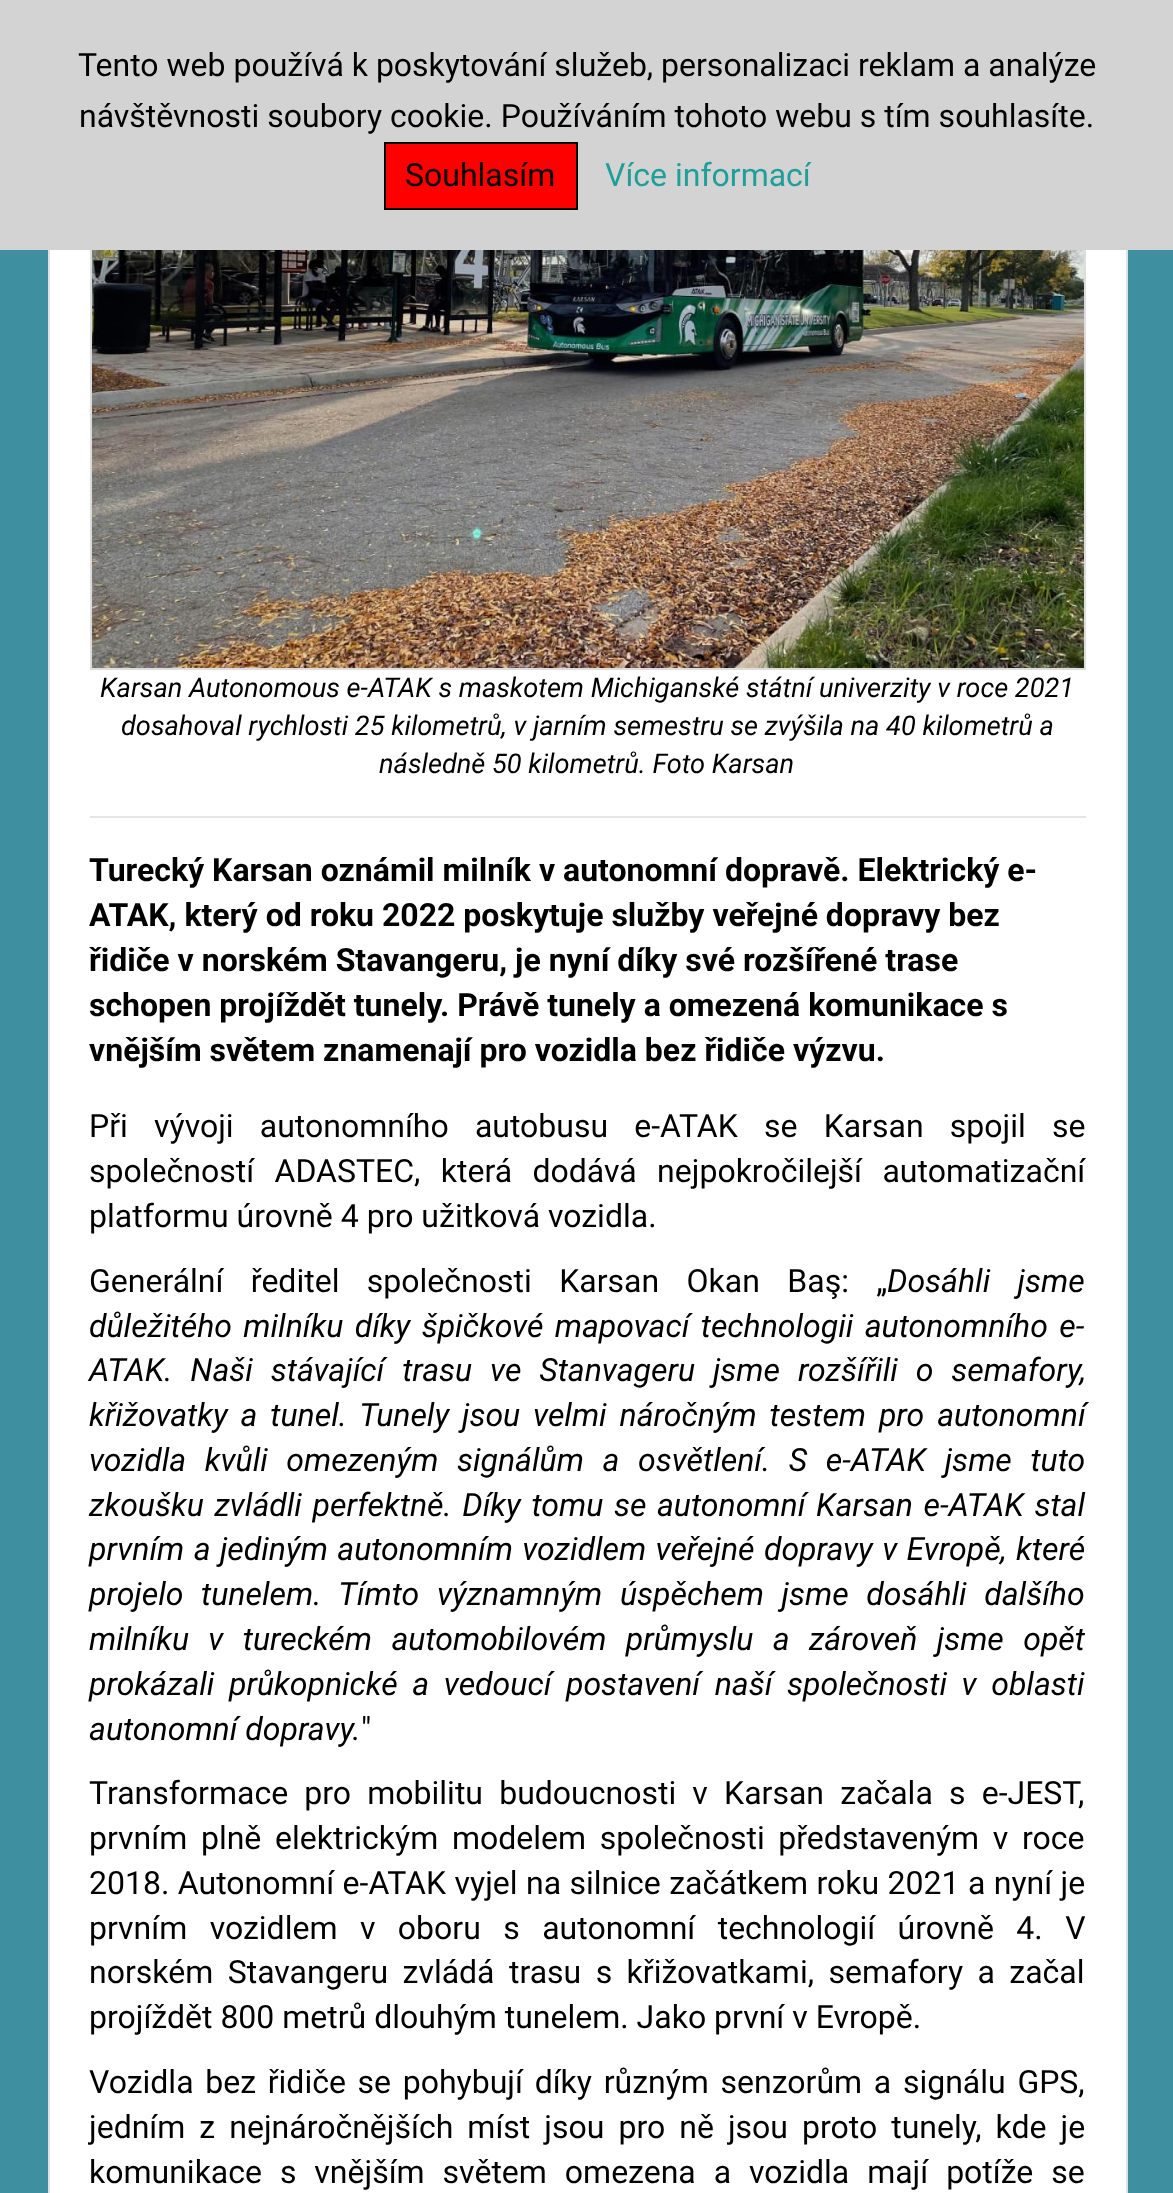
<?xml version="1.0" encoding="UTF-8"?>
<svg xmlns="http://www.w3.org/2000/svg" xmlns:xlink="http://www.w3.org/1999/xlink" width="1173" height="2193">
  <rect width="100%" height="100%" fill="#3e8f9f" />
  <rect x="50" y="250" width="1076" height="1943" fill="#ffffff" />
  <rect x="49" y="-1" width="1078" height="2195" fill="none" stroke="#dee2e6" stroke-width="2" />
  <rect x="91" y="-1" width="994" height="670" fill="none" stroke="#dddddd" stroke-width="2" />
  <rect width="1173" height="250" fill="#d3d3d3" />
  <rect x="385" y="143" width="192" height="66" fill="#ff0000" stroke="#000000" stroke-width="2" />
  <image x="92" y="250" width="992" height="418" xlink:href="image1.png" />
  <rect x="90" y="816" width="996" height="2" fill="#e6e6e6" />
  <text x="78" y="76" style="font-family: Roboto; font-size: 32px; fill: #000000">Tento web používá k poskytování služeb, personalizaci reklam a analýze</text>
  <text x="79" y="127" style="font-family: Roboto; font-size: 32px; fill: #000000">návštěvnosti soubory cookie. Používáním tohoto webu s tím souhlasíte.</text>
  <text x="405" y="186" style="font-family: Roboto; font-size: 32px; fill: #000000">Souhlasím</text>
  <text x="605" y="186" style="font-family: Roboto; font-size: 32px; fill: #1e9f9a">Více informací</text>
  <text x="100" y="697" style="font-family: Roboto; font-size: 27.2px; font-style: italic; fill: #000000">Karsan Autonomous e-ATAK s maskotem Michiganské státní univerzity v roce 2021</text>
  <text x="121" y="735" style="font-family: Roboto; font-size: 27.2px; font-style: italic; fill: #000000">dosahoval rychlosti 25 kilometrů, v jarním semestru se zvýšila na 40 kilometrů a</text>
  <text x="379" y="773" style="font-family: Roboto; font-size: 27.2px; font-style: italic; fill: #000000">následně 50 kilometrů. Foto Karsan</text>
  <text x="89" y="881" style="font-family: Roboto; font-size: 32px; font-weight: bold; fill: #000000">Turecký Karsan oznámil milník v autonomní dopravě. Elektrický e-</text>
  <text x="89" y="926" style="font-family: Roboto; font-size: 32px; font-weight: bold; fill: #000000">ATAK, který od roku 2022 poskytuje služby veřejné dopravy bez</text>
  <text x="89" y="971" style="font-family: Roboto; font-size: 32px; font-weight: bold; fill: #000000">řidiče v norském Stavangeru, je nyní díky své rozšířené trase</text>
  <text x="89" y="1016" style="font-family: Roboto; font-size: 32px; font-weight: bold; fill: #000000">schopen projíždět tunely. Právě tunely a omezená komunikace s</text>
  <text x="89" y="1061" style="font-family: Roboto; font-size: 32px; font-weight: bold; fill: #000000">vnějším světem znamenají pro vozidla bez řidiče výzvu.</text>
  <text x="89" y="1137" word-spacing="18.25" style="font-family: Roboto; font-size: 32px; fill: #000000">Při vývoji autonomního autobusu e-ATAK se Karsan spojil se</text>
  <text x="89" y="1182" word-spacing="12.5" style="font-family: Roboto; font-size: 32px; fill: #000000">společností ADASTEC, která dodává nejpokročilejší automatizační</text>
  <text x="89" y="1227" style="font-family: Roboto; font-size: 32px; fill: #000000">platformu úrovně 4 pro užitková vozidla.</text>
  <text x="89" y="1292" word-spacing="19.5" style="font-family: Roboto; font-size: 32px; fill: #000000">Generální ředitel společnosti Karsan Okan Baş: „</text>
  <text x="887" y="1292" word-spacing="19.5" style="font-family: Roboto; font-size: 32px; font-style: italic; fill: #000000">Dosáhli jsme</text>
  <text x="89" y="1337" word-spacing="3.5" style="font-family: Roboto; font-size: 32px; font-style: italic; fill: #000000">důležitého milníku díky špičkové mapovací technologii autonomního e-</text>
  <text x="89" y="1381" word-spacing="10" style="font-family: Roboto; font-size: 32px; font-style: italic; fill: #000000">ATAK. Naši stávající trasu ve Stanvageru jsme rozšířili o semafory,</text>
  <text x="89" y="1426" word-spacing="5" style="font-family: Roboto; font-size: 32px; font-style: italic; fill: #000000">křižovatky a tunel. Tunely jsou velmi náročným testem pro autonomní</text>
  <text x="89" y="1471" word-spacing="10.75" style="font-family: Roboto; font-size: 32px; font-style: italic; fill: #000000">vozidla kvůli omezeným signálům a osvětlení. S e-ATAK jsme tuto</text>
  <text x="89" y="1516" word-spacing="2.75" style="font-family: Roboto; font-size: 32px; font-style: italic; fill: #000000">zkoušku zvládli perfektně. Díky tomu se autonomní Karsan e-ATAK stal</text>
  <text x="89" y="1560" word-spacing="1.5" style="font-family: Roboto; font-size: 32px; font-style: italic; fill: #000000">prvním a jediným autonomním vozidlem veřejné dopravy v Evropě, které</text>
  <text x="89" y="1605" word-spacing="9.75" style="font-family: Roboto; font-size: 32px; font-style: italic; fill: #000000">projelo tunelem. Tímto významným úspěchem jsme dosáhli dalšího</text>
  <text x="89" y="1650" word-spacing="11.5" style="font-family: Roboto; font-size: 32px; font-style: italic; fill: #000000">milníku v tureckém automobilovém průmyslu a zároveň jsme opět</text>
  <text x="89" y="1695" word-spacing="6.75" style="font-family: Roboto; font-size: 32px; font-style: italic; fill: #000000">prokázali průkopnické a vedoucí postavení naší společnosti v oblasti</text>
  <text x="89" y="1740" style="font-family: Roboto; font-size: 32px; font-style: italic; fill: #000000">autonomní dopravy.</text>
  <text x="361" y="1740" style="font-family: Roboto; font-size: 32px; fill: #000000">"</text>
  <text x="89" y="1804" word-spacing="8.25" style="font-family: Roboto; font-size: 32px; fill: #000000">Transformace pro mobilitu budoucnosti v Karsan začala s e-JEST,</text>
  <text x="89" y="1849" word-spacing="5.75" style="font-family: Roboto; font-size: 32px; fill: #000000">prvním plně elektrickým modelem společnosti představeným v roce</text>
  <text x="89" y="1894" word-spacing="0.5" style="font-family: Roboto; font-size: 32px; fill: #000000">2018. Autonomní e-ATAK vyjel na silnice začátkem roku 2021 a nyní je</text>
  <text x="89" y="1939" word-spacing="14.5" style="font-family: Roboto; font-size: 32px; fill: #000000">prvním vozidlem v oboru s autonomní technologií úrovně 4. V</text>
  <text x="89" y="1983" word-spacing="6.5" style="font-family: Roboto; font-size: 32px; fill: #000000">norském Stavangeru zvládá trasu s křižovatkami, semafory a začal</text>
  <text x="89" y="2028" style="font-family: Roboto; font-size: 32px; fill: #000000">projíždět 800 metrů dlouhým tunelem. Jako první v Evropě.</text>
  <text x="89" y="2093" word-spacing="3.75" style="font-family: Roboto; font-size: 32px; fill: #000000">Vozidla bez řidiče se pohybují díky různým senzorům a signálu GPS,</text>
  <text x="89" y="2138" word-spacing="6.1" style="font-family: Roboto; font-size: 32px; fill: #000000">jedním z nejnáročnějších míst jsou pro ně jsou proto tunely, kde je</text>
  <text x="89" y="2183" word-spacing="10" style="font-family: Roboto; font-size: 32px; fill: #000000">komunikace s vnějším světem omezena a vozidla mají potíže se</text>
</svg>
